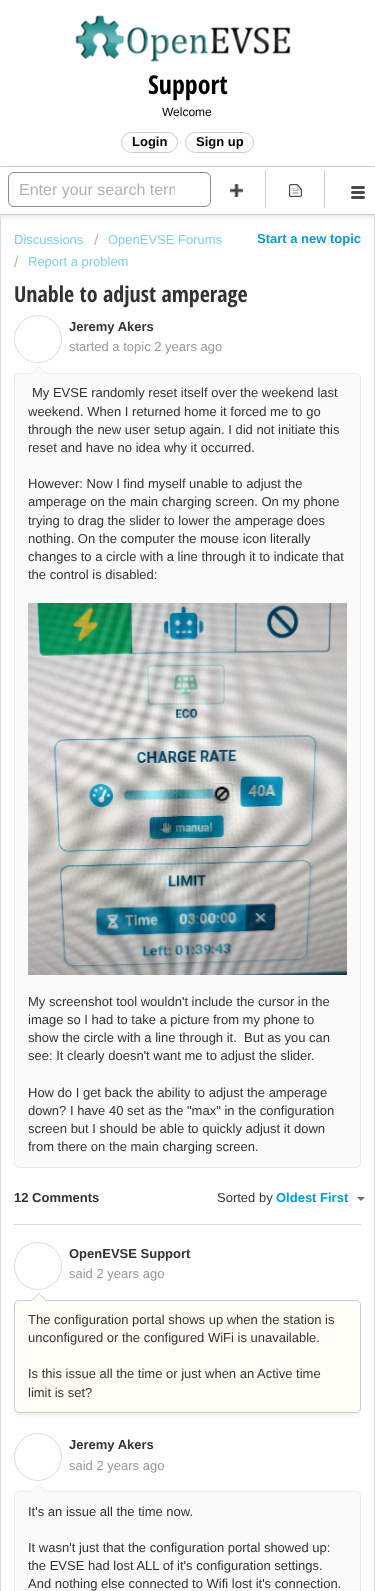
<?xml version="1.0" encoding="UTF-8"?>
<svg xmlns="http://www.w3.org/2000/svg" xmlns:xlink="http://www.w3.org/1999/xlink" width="375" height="1591">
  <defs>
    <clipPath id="clip1"><rect x="19" y="181" width="156" height="18" /></clipPath>
  </defs>
  <rect width="100%" height="100%" fill="#ffffff" />
  <image x="75" y="15" width="216" height="47" xlink:href="image1.png" />
  <rect x="121.5" y="132.5" width="56" height="20" rx="10" fill="none" stroke="#cccccc" />
  <rect x="185.5" y="132.5" width="68" height="20" rx="10" fill="none" stroke="#cccccc" />
  <rect x="0.5" y="215.5" width="374" height="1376" fill="none" stroke="#dcdcdc" />
  <rect y="169" width="375" height="49" fill="#eeeeee" filter="blur(2px)" />
  <rect y="167" width="375" height="47" fill="#ffffff" />
  <rect y="166" width="375" height="1" fill="#cccccc" />
  <rect y="214" width="375" height="1" fill="#cccccc" />
  <image x="351" y="186" width="14" height="13" xlink:href="image2.png" />
  <rect x="8.5" y="172.5" width="202" height="34" rx="5.5" fill="none" stroke="#8c8c8c" />
  <rect x="265" y="170" width="1" height="37" fill="#cccccc" />
  <image x="230" y="184" width="13" height="13" xlink:href="image3.png" />
  <rect x="324" y="170" width="1" height="37" fill="#cccccc" />
  <image x="289" y="184" width="13" height="13" xlink:href="image4.png" />
  <circle cx="38" cy="339" r="23.5" fill="none" stroke="#dddddd" />
  <rect x="14.5" y="373.5" width="346" height="794" rx="4.5" fill="#fafafa" stroke="#ebebeb" />
  <path d="M 47 374 h -16 l 8 -8 z" fill="#ebebeb" />
  <path d="M 46 374 h -14 l 7 -7 z" fill="#fafafa" />
  <image x="28" y="603" width="319" height="372" xlink:href="image5.png" />
  <path d="M 357 1197 h 8 l -4 4 z" fill="#6f6f6f" />
  <rect x="14" y="1224" width="347" height="1" fill="#dcdcdc" />
  <circle cx="38" cy="1266" r="23.5" fill="none" stroke="#dddddd" />
  <rect x="14" y="1303" width="347" height="113" rx="5" fill="#000000" fill-opacity="0.05" filter="blur(1.5px)" />
  <rect x="14.5" y="1300.5" width="346" height="112" rx="4.5" fill="#fffdf8" stroke="#cccccc" />
  <path d="M 47 1301 h -16 l 8 -8 z" fill="#cccccc" />
  <path d="M 46 1301 h -14 l 7 -7 z" fill="#fffdf8" />
  <circle cx="38" cy="1457" r="23.5" fill="none" stroke="#dddddd" />
  <rect x="14.5" y="1491.5" width="346" height="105" rx="4.5" fill="#fafafa" stroke="#ebebeb" />
  <path d="M 47 1492 h -16 l 8 -8 z" fill="#ebebeb" />
  <path d="M 46 1492 h -14 l 7 -7 z" fill="#fafafa" />
  <text x="148" y="94" style="font-family: Open Sans Condensed; font-size: 26px; font-weight: bold; fill: #000000">Support</text>
  <text x="162" y="116" style="font-family: Liberation Sans; font-size: 12px; fill: #000000">Welcome</text>
  <text x="132" y="146" style="font-family: Liberation Sans; font-size: 13px; font-weight: bold; fill: #000000">Login</text>
  <text x="196" y="146" style="font-family: Liberation Sans; font-size: 13px; font-weight: bold; fill: #000000">Sign up</text>
  <g clip-path="url(#clip1)">
    <text x="19" y="195" style="font-family: Liberation Sans; font-size: 16px; fill: #b2b2b2">Enter your search term</text>
  </g>
  <text x="14" y="244" style="font-family: Liberation Sans; font-size: 13px; fill: #82ceed">Discussions</text>
  <text x="94" y="245" style="font-family: Liberation Sans; font-size: 16px; fill: #bbbbbb">/</text>
  <text x="108" y="244" style="font-family: Liberation Sans; font-size: 13px; fill: #82ceed">OpenEVSE Forums</text>
  <text x="14" y="267" style="font-family: Liberation Sans; font-size: 16px; fill: #bbbbbb">/</text>
  <text x="28" y="266" style="font-family: Liberation Sans; font-size: 13px; fill: #82ceed">Report a problem</text>
  <text x="257" y="243" style="font-family: Liberation Sans; font-size: 13px; font-weight: bold; fill: #049cdb">Start a new topic</text>
  <text x="14" y="302" style="font-family: Open Sans Condensed; font-size: 22px; font-weight: bold; fill: #333333">Unable to adjust amperage</text>
  <text x="69" y="331" style="font-family: Liberation Sans; font-size: 13px; font-weight: bold; fill: #333333">Jeremy Akers</text>
  <text x="69" y="351" style="font-family: Liberation Sans; font-size: 13px; fill: #999999">started a topic 2 years ago</text>
  <text x="32" y="397" style="font-family: Liberation Sans; font-size: 13px; fill: #333333">My EVSE randomly reset itself over the weekend last</text>
  <text x="28" y="416" style="font-family: Liberation Sans; font-size: 13px; fill: #333333">weekend. When I returned home it forced me to go</text>
  <text x="28" y="434" style="font-family: Liberation Sans; font-size: 13px; fill: #333333">through the new user setup again. I did not initiate this</text>
  <text x="28" y="452" style="font-family: Liberation Sans; font-size: 13px; fill: #333333">reset and have no idea why it occurred.</text>
  <text x="28" y="488" style="font-family: Liberation Sans; font-size: 13px; fill: #333333">However: Now I find myself unable to adjust the</text>
  <text x="28" y="506" style="font-family: Liberation Sans; font-size: 13px; fill: #333333">amperage on the main charging screen. On my phone</text>
  <text x="28" y="525" style="font-family: Liberation Sans; font-size: 13px; fill: #333333">trying to drag the slider to lower the amperage does</text>
  <text x="28" y="543" style="font-family: Liberation Sans; font-size: 13px; fill: #333333">nothing. On the computer the mouse icon literally</text>
  <text x="28" y="561" style="font-family: Liberation Sans; font-size: 13px; fill: #333333">changes to a circle with a line through it to indicate that</text>
  <text x="28" y="579" style="font-family: Liberation Sans; font-size: 13px; fill: #333333">the control is disabled:</text>
  <text x="28" y="1006" style="font-family: Liberation Sans; font-size: 13px; fill: #333333">My screenshot tool wouldn't include the cursor in the</text>
  <text x="28" y="1024" style="font-family: Liberation Sans; font-size: 13px; fill: #333333">image so I had to take a picture from my phone to</text>
  <text x="28" y="1042" style="font-family: Liberation Sans; font-size: 13px; fill: #333333" xml:space="preserve">show the circle with a line through it.  But as you can</text>
  <text x="28" y="1060" style="font-family: Liberation Sans; font-size: 13px; fill: #333333">see: It clearly doesn't want me to adjust the slider.</text>
  <text x="28" y="1097" style="font-family: Liberation Sans; font-size: 13px; fill: #333333">How do I get back the ability to adjust the amperage</text>
  <text x="28" y="1115" style="font-family: Liberation Sans; font-size: 13px; fill: #333333">down? I have 40 set as the "max" in the configuration</text>
  <text x="28" y="1133" style="font-family: Liberation Sans; font-size: 13px; fill: #333333">screen but I should be able to quickly adjust it down</text>
  <text x="28" y="1151" style="font-family: Liberation Sans; font-size: 13px; fill: #333333">from there on the main charging screen.</text>
  <text x="14" y="1202" style="font-family: Liberation Sans; font-size: 13px; font-weight: bold; fill: #333333">12 Comments</text>
  <text x="217" y="1202" style="font-family: Liberation Sans; font-size: 13px; fill: #333333">Sorted by</text>
  <text x="276" y="1202" style="font-family: Liberation Sans; font-size: 13px; font-weight: bold; fill: #049cdb">Oldest First</text>
  <text x="69" y="1258" style="font-family: Liberation Sans; font-size: 13px; font-weight: bold; fill: #333333">OpenEVSE Support</text>
  <text x="69" y="1278" style="font-family: Liberation Sans; font-size: 13px; fill: #999999">said 2 years ago</text>
  <text x="28" y="1324" style="font-family: Liberation Sans; font-size: 13px; fill: #333333">The configuration portal shows up when the station is</text>
  <text x="28" y="1342" style="font-family: Liberation Sans; font-size: 13px; fill: #333333">unconfigured or the configured WiFi is unavailable.</text>
  <text x="28" y="1378" style="font-family: Liberation Sans; font-size: 13px; fill: #333333">Is this issue all the time or just when an Active time</text>
  <text x="28" y="1397" style="font-family: Liberation Sans; font-size: 13px; fill: #333333">limit is set?</text>
  <text x="69" y="1449" style="font-family: Liberation Sans; font-size: 13px; font-weight: bold; fill: #333333">Jeremy Akers</text>
  <text x="69" y="1470" style="font-family: Liberation Sans; font-size: 13px; fill: #999999">said 2 years ago</text>
  <text x="28" y="1516" style="font-family: Liberation Sans; font-size: 13px; fill: #333333">It's an issue all the time now.</text>
  <text x="28" y="1552" style="font-family: Liberation Sans; font-size: 13px; fill: #333333">It wasn't just that the configuration portal showed up:</text>
  <text x="28" y="1570" style="font-family: Liberation Sans; font-size: 13px; fill: #333333">the EVSE had lost ALL of it's configuration settings.</text>
  <text x="28" y="1588" style="font-family: Liberation Sans; font-size: 13px; fill: #333333">And nothing else connected to Wifi lost it's connection.</text>
</svg>
